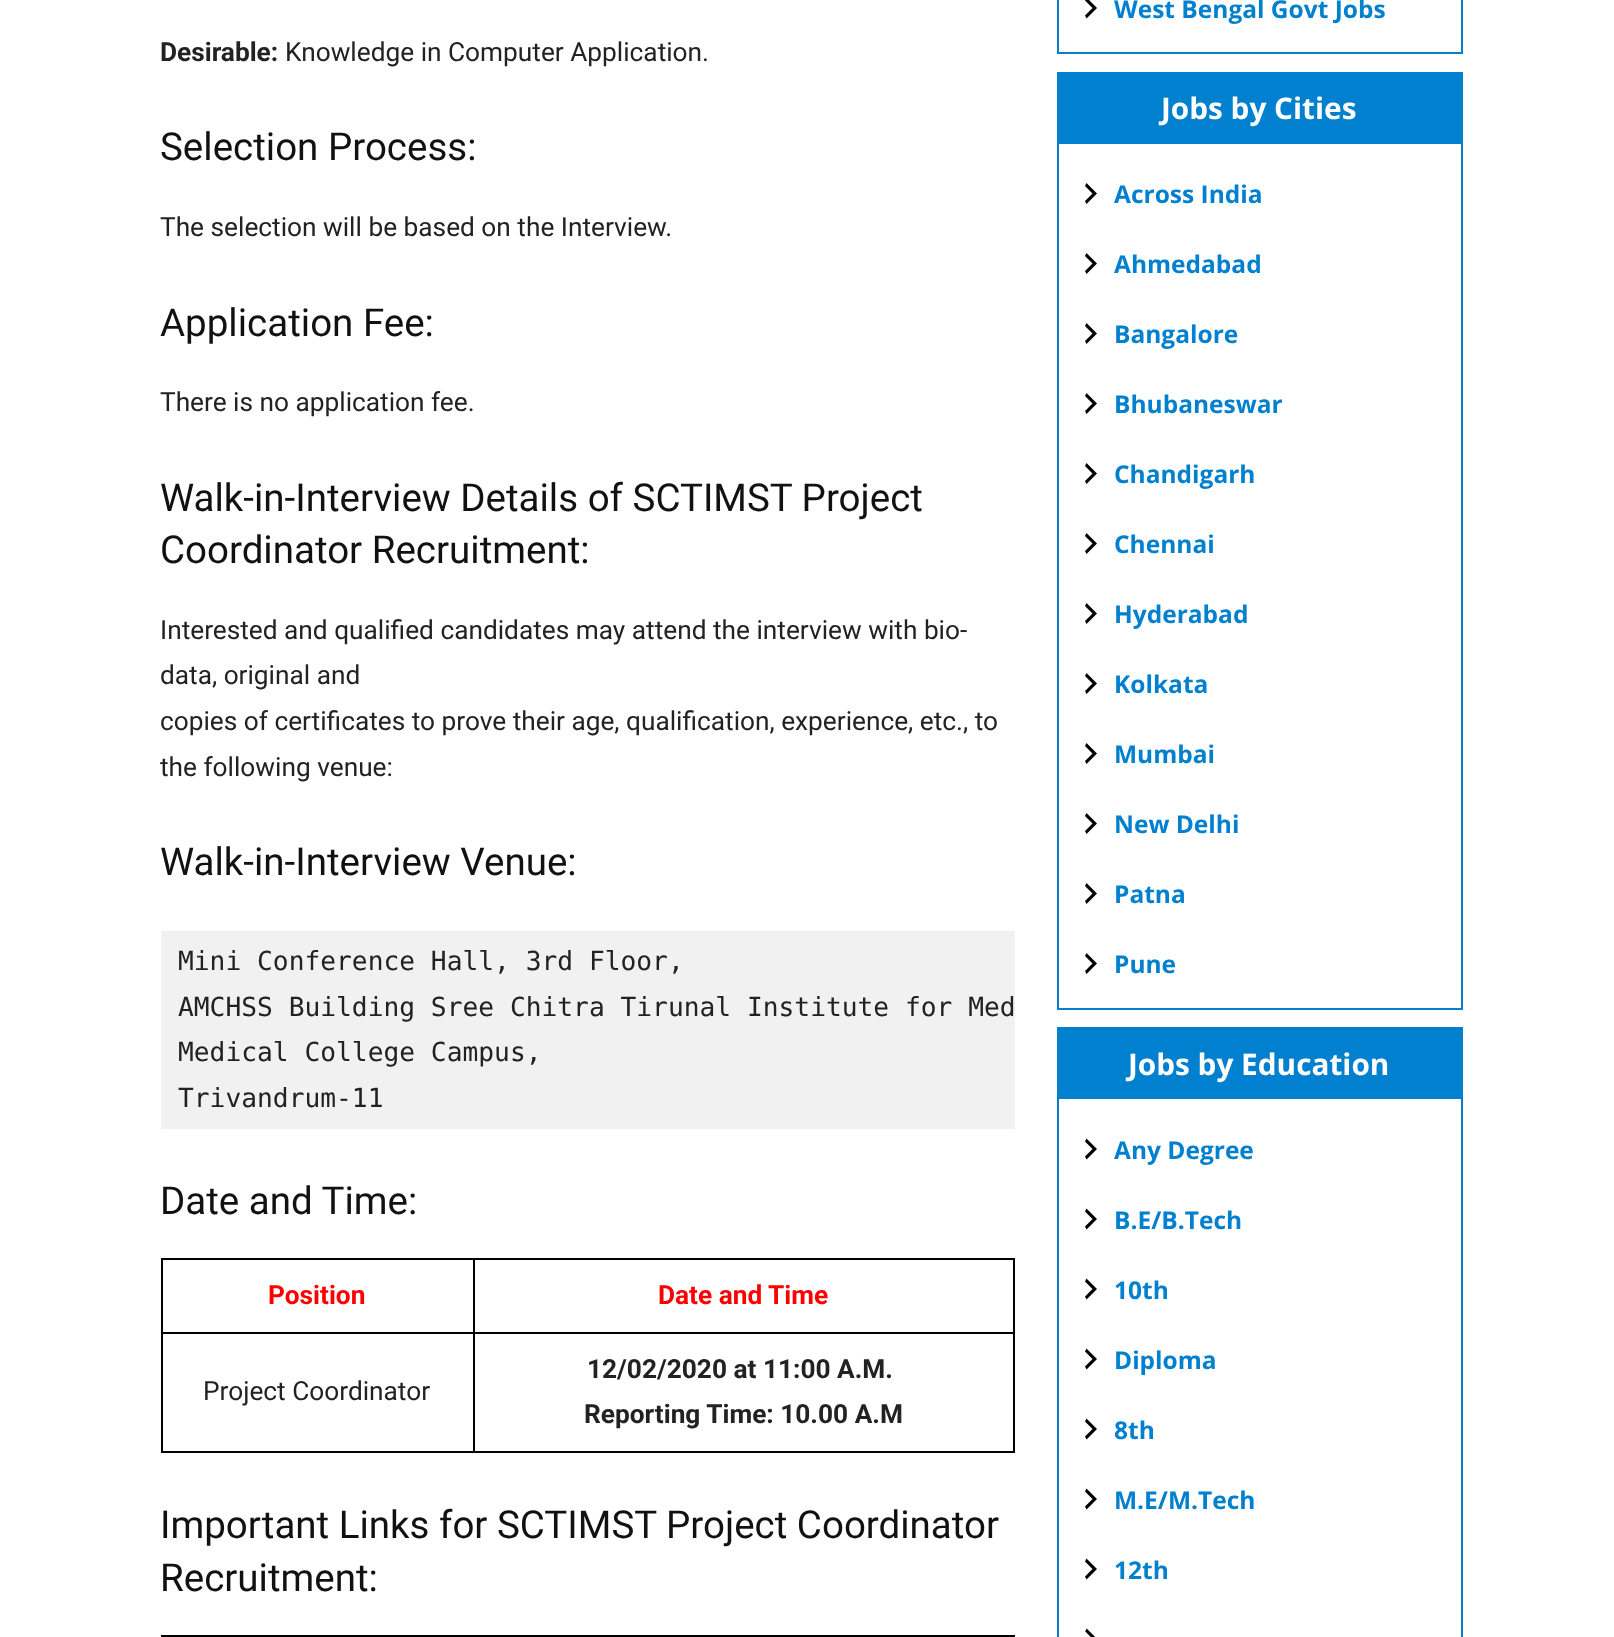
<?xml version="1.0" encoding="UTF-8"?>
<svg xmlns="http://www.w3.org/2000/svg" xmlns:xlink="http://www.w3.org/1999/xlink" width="1614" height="1637">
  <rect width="100%" height="100%" fill="#ffffff" />
  <rect x="161" y="931" width="854" height="198" fill="#f1f1f1" />
  <rect x="473" y="1258" width="542" height="2" fill="#000000" />
  <rect x="473" y="1332" width="542" height="2" fill="#000000" />
  <rect x="1013" y="1332" width="2" height="121" fill="#000000" />
  <rect x="473" y="1451" width="542" height="2" fill="#000000" />
  <rect x="473" y="1332" width="2" height="121" fill="#000000" />
  <rect x="161" y="1332" width="313" height="2" fill="#000000" />
  <rect x="473" y="1258" width="2" height="76" fill="#000000" />
  <rect x="161" y="1258" width="313" height="2" fill="#000000" />
  <rect x="161" y="1451" width="313" height="2" fill="#000000" />
  <rect x="161" y="1332" width="2" height="121" fill="#000000" />
  <rect x="161" y="1258" width="2" height="76" fill="#000000" />
  <rect x="1013" y="1258" width="2" height="76" fill="#000000" />
  <rect x="161" y="1635" width="854" height="2" fill="#000000" />
  <rect x="1058" y="-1" width="404" height="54" fill="none" stroke="#0080ce" stroke-width="2" />
  <path d="M 1085 15.5 l 7.5 -7.5 l -7.5 -7.5 l 1.5 -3 l 10.5 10.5 l -10.5 10.5 z" fill="#000000" />
  <rect x="1057" y="72" width="406" height="70" fill="#0080ce" />
  <rect x="1058" y="143" width="404" height="866" fill="none" stroke="#0080ce" stroke-width="2" />
  <path d="M 1085 201 l 7.5 -7.5 l -7.5 -7.5 l 1.5 -3 l 10.5 10.5 l -10.5 10.5 z" fill="#000000" />
  <path d="M 1085 271 l 7.5 -7.5 l -7.5 -7.5 l 1.5 -3 l 10.5 10.5 l -10.5 10.5 z" fill="#000000" />
  <path d="M 1085 341 l 7.5 -7.5 l -7.5 -7.5 l 1.5 -3 l 10.5 10.5 l -10.5 10.5 z" fill="#000000" />
  <path d="M 1085 411 l 7.5 -7.5 l -7.5 -7.5 l 1.5 -3 l 10.5 10.5 l -10.5 10.5 z" fill="#000000" />
  <path d="M 1085 481 l 7.5 -7.5 l -7.5 -7.5 l 1.5 -3 l 10.5 10.5 l -10.5 10.5 z" fill="#000000" />
  <path d="M 1085 551 l 7.5 -7.5 l -7.5 -7.5 l 1.5 -3 l 10.5 10.5 l -10.5 10.5 z" fill="#000000" />
  <path d="M 1085 621 l 7.5 -7.5 l -7.5 -7.5 l 1.5 -3 l 10.5 10.5 l -10.5 10.5 z" fill="#000000" />
  <path d="M 1085 691 l 7.5 -7.5 l -7.5 -7.5 l 1.5 -3 l 10.5 10.5 l -10.5 10.5 z" fill="#000000" />
  <path d="M 1085 761 l 7.5 -7.5 l -7.5 -7.5 l 1.5 -3 l 10.5 10.5 l -10.5 10.5 z" fill="#000000" />
  <path d="M 1085 831 l 7.5 -7.5 l -7.5 -7.5 l 1.5 -3 l 10.5 10.5 l -10.5 10.5 z" fill="#000000" />
  <path d="M 1085 901 l 7.5 -7.5 l -7.5 -7.5 l 1.5 -3 l 10.5 10.5 l -10.5 10.5 z" fill="#000000" />
  <path d="M 1085 971 l 7.5 -7.5 l -7.5 -7.5 l 1.5 -3 l 10.5 10.5 l -10.5 10.5 z" fill="#000000" />
  <rect x="1057" y="1027" width="406" height="70" fill="#0080ce" />
  <rect x="1058" y="1098" width="404" height="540" fill="none" stroke="#0080ce" stroke-width="2" />
  <path d="M 1085 1156.5 l 7.5 -7.5 l -7.5 -7.5 l 1.5 -3 l 10.5 10.5 l -10.5 10.5 z" fill="#000000" />
  <path d="M 1085 1226.5 l 7.5 -7.5 l -7.5 -7.5 l 1.5 -3 l 10.5 10.5 l -10.5 10.5 z" fill="#000000" />
  <path d="M 1085 1296.5 l 7.5 -7.5 l -7.5 -7.5 l 1.5 -3 l 10.5 10.5 l -10.5 10.5 z" fill="#000000" />
  <path d="M 1085 1366.5 l 7.5 -7.5 l -7.5 -7.5 l 1.5 -3 l 10.5 10.5 l -10.5 10.5 z" fill="#000000" />
  <path d="M 1085 1436.5 l 7.5 -7.5 l -7.5 -7.5 l 1.5 -3 l 10.5 10.5 l -10.5 10.5 z" fill="#000000" />
  <path d="M 1085 1506.5 l 7.5 -7.5 l -7.5 -7.5 l 1.5 -3 l 10.5 10.5 l -10.5 10.5 z" fill="#000000" />
  <path d="M 1085 1576.5 l 7.5 -7.5 l -7.5 -7.5 l 1.5 -3 l 10.5 10.5 l -10.5 10.5 z" fill="#000000" />
  <image x="1085" y="1628" width="10" height="9" xlink:href="image1.png" />
  <text x="160" y="61" style="font-family: Roboto; font-size: 26.25px; font-weight: bold; fill: #222222">Desirable:</text>
  <text x="285" y="61" style="font-family: Roboto; font-size: 26.25px; fill: #222222">Knowledge in Computer Application.</text>
  <text x="160" y="160" style="font-family: Roboto; font-size: 38.5px; fill: #111111">Selection Process:</text>
  <text x="160" y="236" style="font-family: Roboto; font-size: 26.25px; fill: #222222">The selection will be based on the Interview.</text>
  <text x="160" y="336" style="font-family: Roboto; font-size: 38.5px; fill: #111111">Application Fee:</text>
  <text x="160" y="411" style="font-family: Roboto; font-size: 26.25px; fill: #222222">There is no application fee.</text>
  <text x="160" y="511" style="font-family: Roboto; font-size: 38.5px; fill: #111111">Walk-in-Interview Details of SCTIMST Project</text>
  <text x="160" y="563" style="font-family: Roboto; font-size: 38.5px; fill: #111111">Coordinator Recruitment:</text>
  <text x="160" y="639" style="font-family: Roboto; font-size: 26.25px; fill: #222222">Interested and qualified candidates may attend the interview with bio-</text>
  <text x="160" y="684" style="font-family: Roboto; font-size: 26.25px; fill: #222222">data, original and</text>
  <text x="160" y="730" style="font-family: Roboto; font-size: 26.25px; fill: #222222">copies of certificates to prove their age, qualification, experience, etc., to</text>
  <text x="160" y="776" style="font-family: Roboto; font-size: 26.25px; fill: #222222">the following venue:</text>
  <text x="160" y="875" style="font-family: Roboto; font-size: 38.5px; fill: #111111">Walk-in-Interview Venue:</text>
  <text x="178" y="970" style="font-family: DejaVu Sans Mono; font-size: 26.25px; fill: #222222">Mini Conference Hall, 3rd Floor,</text>
  <text x="178" y="1016" style="font-family: DejaVu Sans Mono; font-size: 26.25px; fill: #222222">AMCHSS Building Sree Chitra Tirunal Institute for Med</text>
  <text x="178" y="1061" style="font-family: DejaVu Sans Mono; font-size: 26.25px; fill: #222222">Medical College Campus,</text>
  <text x="178" y="1107" style="font-family: DejaVu Sans Mono; font-size: 26.25px; fill: #222222">Trivandrum-11</text>
  <text x="160" y="1214" style="font-family: Roboto; font-size: 38.5px; fill: #111111">Date and Time:</text>
  <text x="268" y="1304" style="font-family: Roboto; font-size: 26.25px; font-weight: bold; fill: #ff0000">Position</text>
  <text x="658" y="1304" style="font-family: Roboto; font-size: 26.25px; font-weight: bold; fill: #ff0000">Date and Time</text>
  <text x="203" y="1400" style="font-family: Roboto; font-size: 26.25px; fill: #222222">Project Coordinator</text>
  <text x="587" y="1378" style="font-family: Roboto; font-size: 26.25px; font-weight: bold; fill: #222222">12/02/2020 at 11:00 A.M.</text>
  <text x="584" y="1423" style="font-family: Roboto; font-size: 26.25px; font-weight: bold; fill: #222222">Reporting Time: 10.00 A.M</text>
  <text x="160" y="1538" style="font-family: Roboto; font-size: 38.5px; fill: #111111">Important Links for SCTIMST Project Coordinator</text>
  <text x="160" y="1591" style="font-family: Roboto; font-size: 38.5px; fill: #111111">Recruitment:</text>
  <text x="1114" y="18" style="font-family: Open Sans; font-size: 24.5px; font-weight: bold; fill: #0080ce">West Bengal Govt Jobs</text>
  <text x="1161" y="119" style="font-family: Open Sans; font-size: 29.75px; font-weight: bold; fill: #ffffff">Jobs by Cities</text>
  <text x="1114" y="203" style="font-family: Open Sans; font-size: 24.5px; font-weight: bold; fill: #0080ce">Across India</text>
  <text x="1114" y="273" style="font-family: Open Sans; font-size: 24.5px; font-weight: bold; fill: #0080ce">Ahmedabad</text>
  <text x="1114" y="343" style="font-family: Open Sans; font-size: 24.5px; font-weight: bold; fill: #0080ce">Bangalore</text>
  <text x="1114" y="413" style="font-family: Open Sans; font-size: 24.5px; font-weight: bold; fill: #0080ce">Bhubaneswar</text>
  <text x="1114" y="483" style="font-family: Open Sans; font-size: 24.5px; font-weight: bold; fill: #0080ce">Chandigarh</text>
  <text x="1114" y="553" style="font-family: Open Sans; font-size: 24.5px; font-weight: bold; fill: #0080ce">Chennai</text>
  <text x="1114" y="623" style="font-family: Open Sans; font-size: 24.5px; font-weight: bold; fill: #0080ce">Hyderabad</text>
  <text x="1114" y="693" style="font-family: Open Sans; font-size: 24.5px; font-weight: bold; fill: #0080ce">Kolkata</text>
  <text x="1114" y="763" style="font-family: Open Sans; font-size: 24.5px; font-weight: bold; fill: #0080ce">Mumbai</text>
  <text x="1114" y="833" style="font-family: Open Sans; font-size: 24.5px; font-weight: bold; fill: #0080ce">New Delhi</text>
  <text x="1114" y="903" style="font-family: Open Sans; font-size: 24.5px; font-weight: bold; fill: #0080ce">Patna</text>
  <text x="1114" y="973" style="font-family: Open Sans; font-size: 24.5px; font-weight: bold; fill: #0080ce">Pune</text>
  <text x="1128" y="1075" style="font-family: Open Sans; font-size: 29.75px; font-weight: bold; fill: #ffffff">Jobs by Education</text>
  <text x="1114" y="1159" style="font-family: Open Sans; font-size: 24.5px; font-weight: bold; fill: #0080ce">Any Degree</text>
  <text x="1114" y="1229" style="font-family: Open Sans; font-size: 24.5px; font-weight: bold; fill: #0080ce">B.E/B.Tech</text>
  <text x="1114" y="1299" style="font-family: Open Sans; font-size: 24.5px; font-weight: bold; fill: #0080ce">10th</text>
  <text x="1114" y="1369" style="font-family: Open Sans; font-size: 24.5px; font-weight: bold; fill: #0080ce">Diploma</text>
  <text x="1114" y="1439" style="font-family: Open Sans; font-size: 24.5px; font-weight: bold; fill: #0080ce">8th</text>
  <text x="1114" y="1509" style="font-family: Open Sans; font-size: 24.5px; font-weight: bold; fill: #0080ce">M.E/M.Tech</text>
  <text x="1114" y="1579" style="font-family: Open Sans; font-size: 24.5px; font-weight: bold; fill: #0080ce">12th</text>
</svg>
